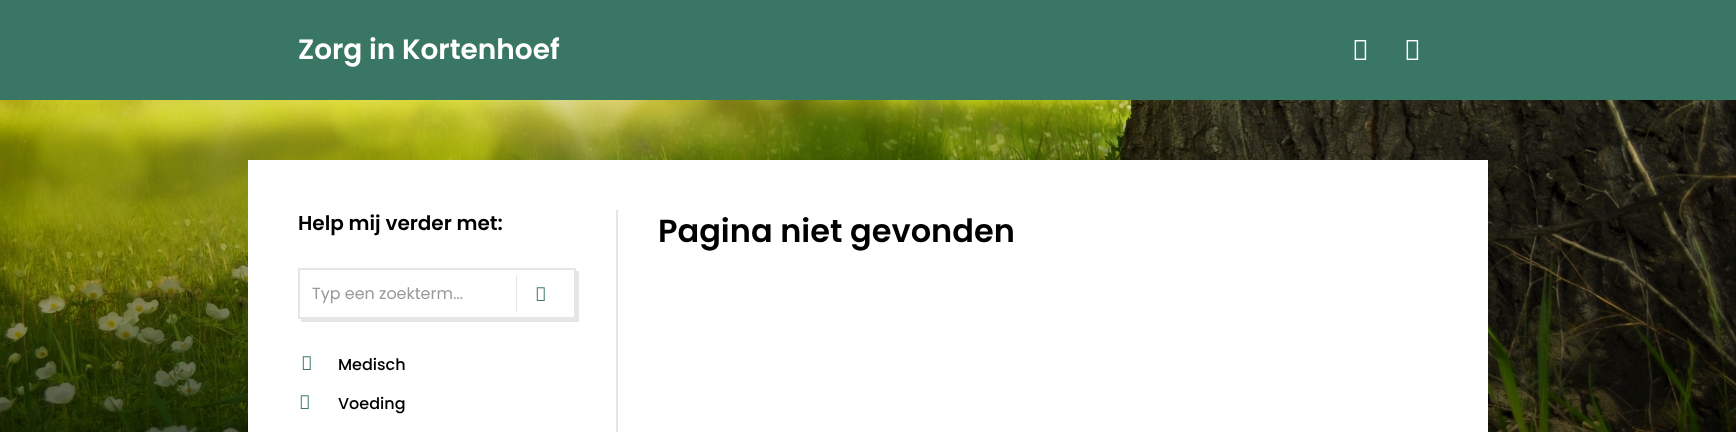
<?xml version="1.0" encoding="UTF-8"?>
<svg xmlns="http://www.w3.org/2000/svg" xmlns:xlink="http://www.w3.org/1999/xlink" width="1736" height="432">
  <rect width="100%" height="100%" fill="#ffffff" />
  <rect width="1736" height="100" fill="#397764" />
  <image x="1354" y="40" width="13" height="20" xlink:href="image1.png" />
  <image x="1406" y="40" width="13" height="20" xlink:href="image1.png" />
  <image x="0" y="100" width="1736" height="332" xlink:href="image2.png" />
  <rect x="248" y="160" width="1240" height="272" fill="#ffffff" />
  <rect x="616" y="210" width="2" height="222" fill="#e6e6e6" />
  <path d="M 301 319 v 3 h 278 v -51 h -3 v 48 z" fill="#e6e6e6" />
  <rect x="298" y="268" width="278" height="2" fill="#e6e6e6" />
  <rect x="298" y="317" width="218" height="2" fill="#e6e6e6" />
  <rect x="298" y="268" width="2" height="51" fill="#e6e6e6" />
  <rect x="574" y="268" width="2" height="51" fill="#e6e6e6" />
  <rect x="516" y="317" width="60" height="2" fill="#e6e6e6" />
  <rect x="516" y="275" width="1" height="37" fill="#e6e6e6" />
  <image x="536" y="287" width="9" height="14" xlink:href="image3.png" />
  <image x="302" y="356" width="9" height="14" xlink:href="image3.png" />
  <image x="300" y="395" width="9" height="14" xlink:href="image3.png" />
  <text x="298" y="59" style="font-family: Poppins; font-size: 28px; font-weight: 600; fill: #ffffff">Zorg in Kortenhoef</text>
  <text x="298" y="230" style="font-family: Poppins; font-size: 20px; font-weight: 600; fill: #000000">Help mij verder met:</text>
  <text x="312" y="299" style="font-family: Poppins; font-size: 16px; fill: #999999">Typ een zoekterm...</text>
  <text x="338" y="370" style="font-family: Poppins; font-size: 16px; font-weight: 500; fill: #000000">Medisch</text>
  <text x="338" y="409" style="font-family: Poppins; font-size: 16px; font-weight: 500; fill: #000000">Voeding</text>
  <text x="658" y="242" style="font-family: Poppins; font-size: 32px; font-weight: 600; fill: #000000">Pagina niet gevonden</text>
</svg>
